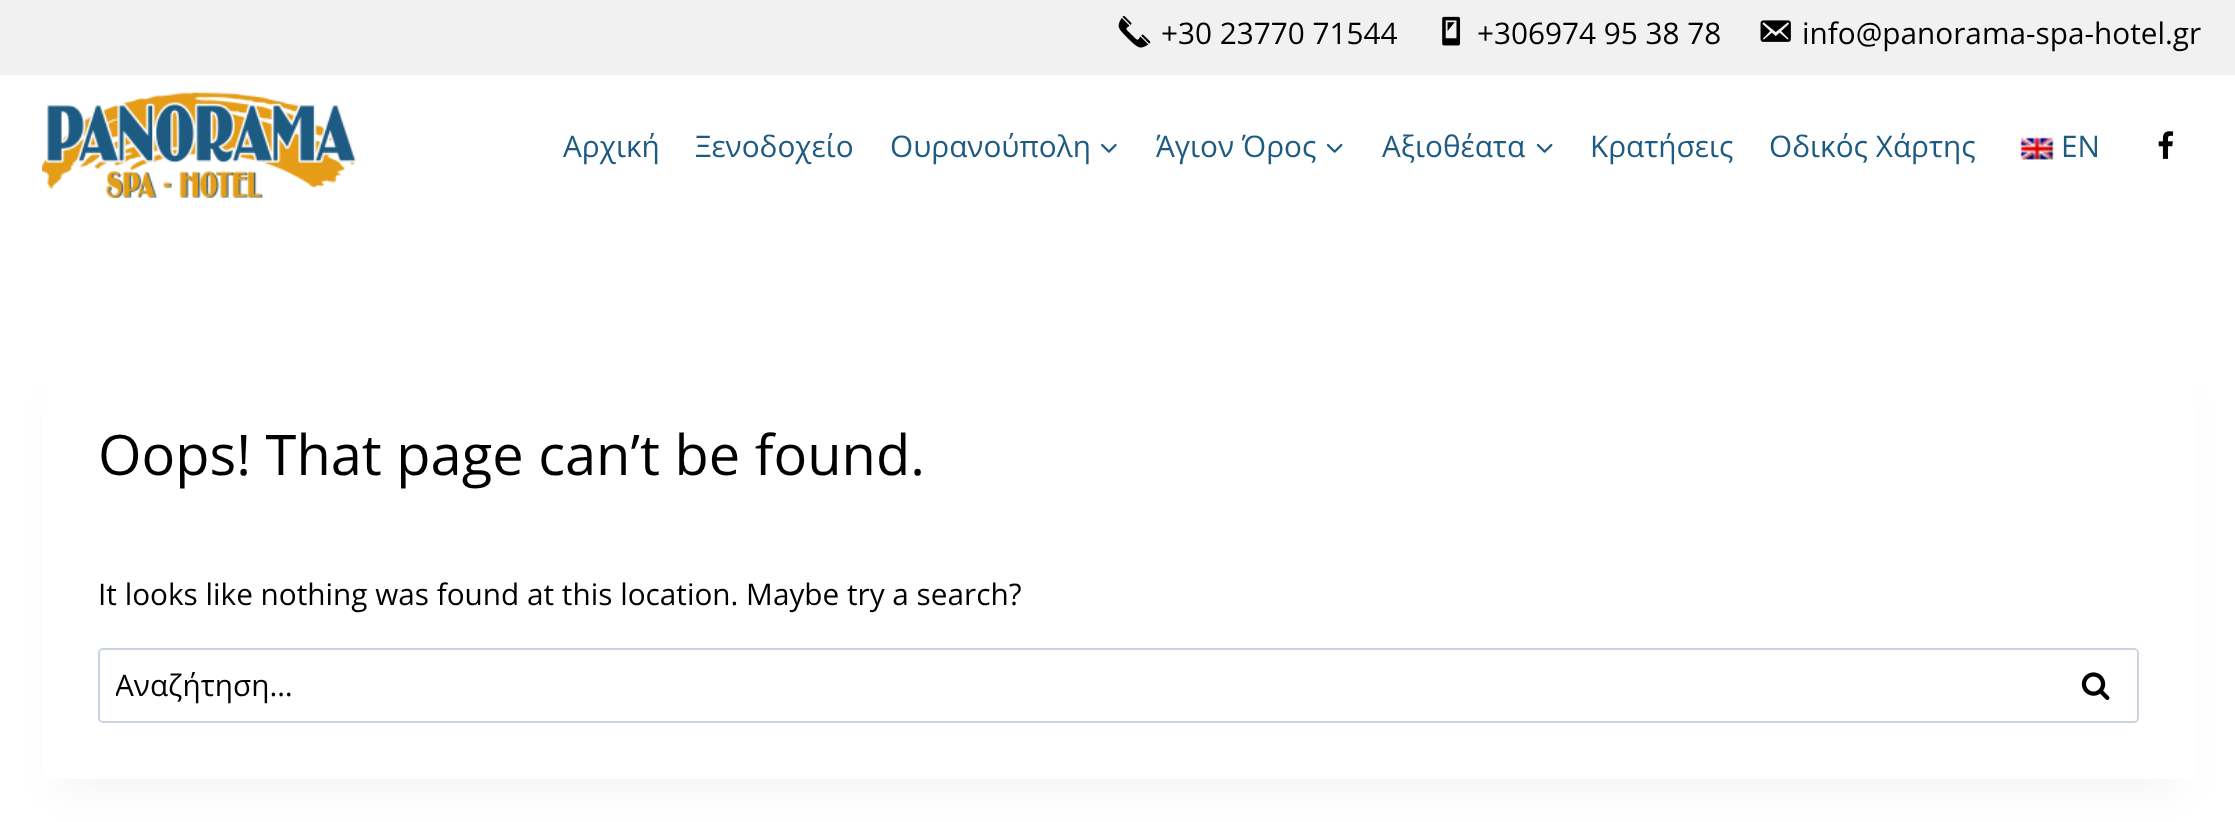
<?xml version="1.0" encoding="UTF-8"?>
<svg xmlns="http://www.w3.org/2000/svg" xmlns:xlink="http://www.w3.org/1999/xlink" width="2235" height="822">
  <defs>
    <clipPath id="clip1"><rect x="116" y="665" width="1888" height="40" /></clipPath>
  </defs>
  <rect width="100%" height="100%" fill="#ffffff" />
  <rect width="2235" height="75" fill="#f1f1f1" />
  <image x="1118" y="15" width="33" height="33" xlink:href="image1.png" />
  <image x="1442" y="16" width="19" height="30" xlink:href="image2.png" />
  <image x="1760" y="20" width="31" height="22" xlink:href="image3.png" />
  <image x="42" y="92" width="314" height="106" xlink:href="image4.png" />
  <image x="1101" y="143" width="16" height="10" xlink:href="image5.png" />
  <image x="1326" y="143" width="17" height="10" xlink:href="image6.png" />
  <image x="1536" y="143" width="17" height="10" xlink:href="image6.png" />
  <image x="2020" y="137" width="34" height="23" xlink:href="image7.png" />
  <image x="2158" y="131" width="16" height="28" xlink:href="image8.png" />
  <rect x="60" y="399" width="2117" height="389" fill="#000000" fill-opacity="0.05" filter="blur(22px)" />
  <rect x="42" y="355" width="2153" height="424" rx="7" fill="#ffffff" />
  <rect x="99" y="649" width="2039" height="73" rx="4" fill="none" stroke="#cbd5e0" stroke-width="2" />
  <image x="2081" y="672" width="29" height="28" xlink:href="image9.png" />
  <text x="1161" y="44" style="font-family: Open Sans; font-size: 29.75px; fill: #000000">+30 23770 71544</text>
  <text x="1477" y="44" style="font-family: Open Sans; font-size: 29.75px; fill: #000000">+306974 95 38 78</text>
  <text x="1802" y="44" style="font-family: Open Sans; font-size: 29.75px; fill: #000000">info@panorama-spa-hotel.gr</text>
  <text x="563" y="157" style="font-family: Open Sans; font-size: 29.75px; fill: #1d5b83">Αρχική</text>
  <text x="695" y="157" style="font-family: Open Sans; font-size: 29.75px; fill: #1d5b83">Ξενοδοχείο</text>
  <text x="890" y="157" style="font-family: Open Sans; font-size: 29.75px; fill: #1d5b83">Ουρανούπολη</text>
  <text x="1156" y="157" style="font-family: Open Sans; font-size: 29.75px; fill: #1d5b83">Άγιον Όρος</text>
  <text x="1382" y="157" style="font-family: Open Sans; font-size: 29.75px; fill: #1d5b83">Αξιοθέατα</text>
  <text x="1590" y="157" style="font-family: Open Sans; font-size: 29.75px; fill: #1d5b83">Κρατήσεις</text>
  <text x="1769" y="157" style="font-family: Open Sans; font-size: 29.75px; fill: #1d5b83">Οδικός Χάρτης</text>
  <text x="2061" y="157" style="font-family: Open Sans; font-size: 29.75px; fill: #1d5b83">EN</text>
  <text x="98" y="475" style="font-family: Open Sans; font-size: 56px; fill: #000000">Oops! That page can’t be found.</text>
  <text x="98" y="605" style="font-family: Open Sans; font-size: 29.75px; fill: #000000">It looks like nothing was found at this location. Maybe try a search?</text>
  <g clip-path="url(#clip1)">
    <text x="115" y="696" style="font-family: Open Sans; font-size: 29.75px; fill: #000000">Αναζήτηση…</text>
  </g>
</svg>
